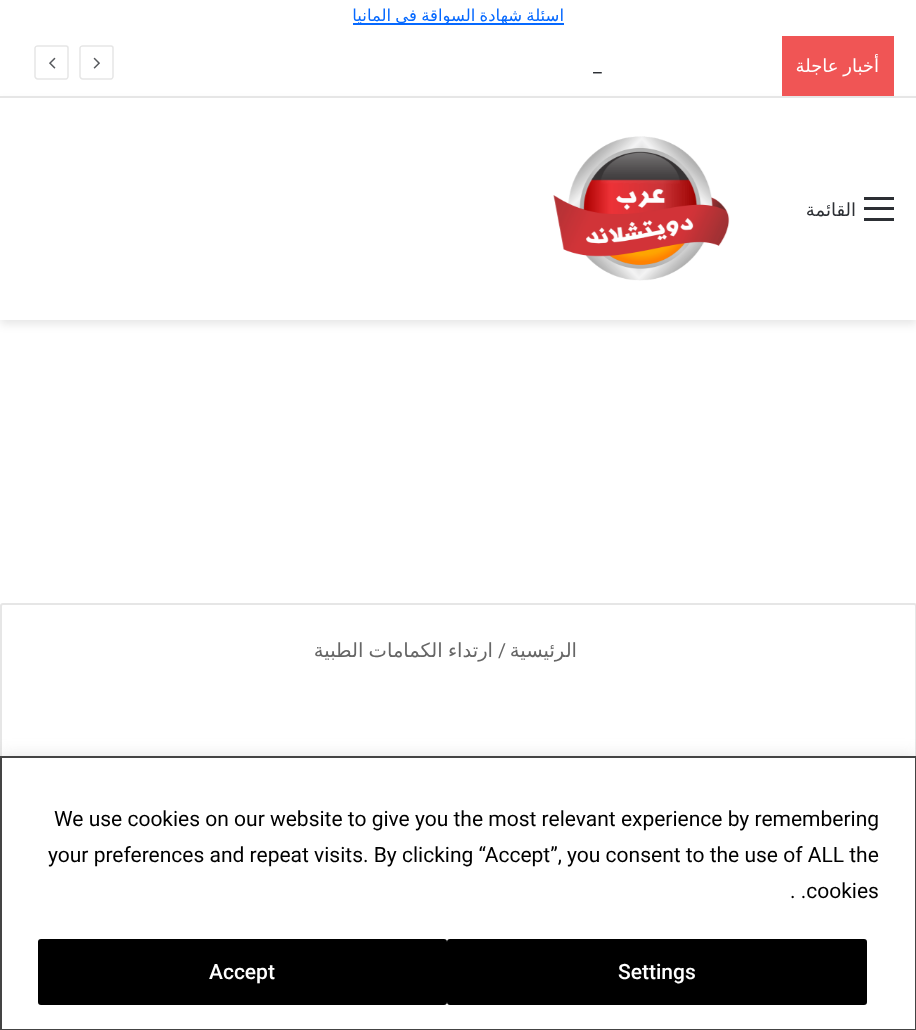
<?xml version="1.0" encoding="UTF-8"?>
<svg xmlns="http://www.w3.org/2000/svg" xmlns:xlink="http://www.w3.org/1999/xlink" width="916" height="1030">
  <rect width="100%" height="100%" fill="#ffffff" />
  <rect x="353" y="23" width="211" height="2" fill="#0669ff" />
  <rect y="102" width="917" height="222" fill="#000000" fill-opacity="0.1" filter="blur(5px)" />
  <rect y="96" width="916" height="2" fill="#e6e6e6" />
  <path d="M 66 79 h -28.5 c -1 0 -2.5 -1.5 -2.5 -2.5 v -28.5 c 0 -1 1.5 -2 2.5 -2 h 28.5 c 1 0 2 1 2 2 v 28.5 c 0 1 -1 2.5 -2 2.5 z" fill="none" stroke="#e6e6e6" stroke-width="1.5" />
  <image x="49" y="57" width="7" height="12" xlink:href="image1.png" />
  <path d="M 111 79 h -28.5 c -1 0 -2.5 -1.5 -2.5 -2.5 v -28.5 c 0 -1 1.5 -2 2.5 -2 h 28.5 c 1 0 2 1 2 2 v 28.5 c 0 1 -1 2.5 -2 2.5 z" fill="none" stroke="#e6e6e6" stroke-width="1.5" />
  <image x="93" y="57" width="7" height="12" xlink:href="image2.png" />
  <rect x="782" y="36" width="112" height="60" fill="#f05555" />
  <rect y="98" width="916" height="222" fill="#ffffff" />
  <image x="553" y="136" width="177" height="145" xlink:href="image3.png" />
  <rect x="864" y="207" width="30" height="3" fill="#2c2f34" />
  <rect x="864" y="197" width="30" height="3" fill="#2c2f34" />
  <rect x="864" y="218" width="30" height="3" fill="#2c2f34" />
  <path d="M 3 604 h 911 c 1 0 2 1 2 2 v 221 h -915 v -221 c 0 -1 1 -2 2 -2 z" fill="none" stroke="#e6e6e6" stroke-width="2" />
  <rect y="755" width="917" height="274" fill="#acabab" fill-opacity="0.3" filter="blur(7.5px)" />
  <rect x="1" y="757" width="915" height="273" fill="#ffffff" stroke="#444444" stroke-width="2" />
  <rect x="39.5" y="940.5" width="406" height="63" rx="1.5" fill="#000000" stroke="#000000" stroke-width="3" />
  <rect x="448.5" y="940.5" width="417" height="63" rx="1.5" fill="#000000" stroke="#000000" stroke-width="3" />
  <text x="564" y="21" word-spacing="-1" style="font-family: DejaVu Sans; font-size: 16.5px; direction: rtl; fill: #0669ff">اسئلة شهادة السواقة في المانيا</text>
  <text x="593" y="72" style="font-family: Roboto; font-size: 19.5px; fill: #2c2f34">_</text>
  <text x="879" y="72" word-spacing="-1" style="font-family: DejaVu Sans; font-size: 18px; direction: rtl; fill: #ffffff">أخبار عاجلة</text>
  <text x="856" y="216" style="font-family: DejaVu Sans; font-size: 18px; direction: rtl; fill: #2c2f34">القائمة</text>
  <text x="493" y="657" word-spacing="-1" style="font-family: DejaVu Sans; font-size: 19.5px; direction: rtl; fill: #666666">ارتداء الكمامات الطبية</text>
  <text x="498" y="657" style="font-family: Roboto; font-size: 19.5px; fill: #666666">/</text>
  <text x="577" y="657" style="font-family: DejaVu Sans; font-size: 19.5px; direction: rtl; fill: #666666">الرئيسية</text>
  <text x="54" y="826" style="font-family: Roboto; font-size: 21px; fill: #000000">We use cookies on our website to give you the most relevant experience by remembering</text>
  <text x="48" y="862" style="font-family: Roboto; font-size: 21px; fill: #000000">your preferences and repeat visits. By clicking “Accept”, you consent to the use of ALL the</text>
  <text x="790" y="898" style="font-family: Roboto; font-size: 21px; fill: #000000">. .cookies</text>
  <text x="209" y="979" style="font-family: Roboto; font-size: 21px; font-weight: 500; fill: #ffffff">Accept</text>
  <text x="618" y="979" style="font-family: Roboto; font-size: 21px; font-weight: 500; fill: #ffffff">Settings</text>
</svg>
